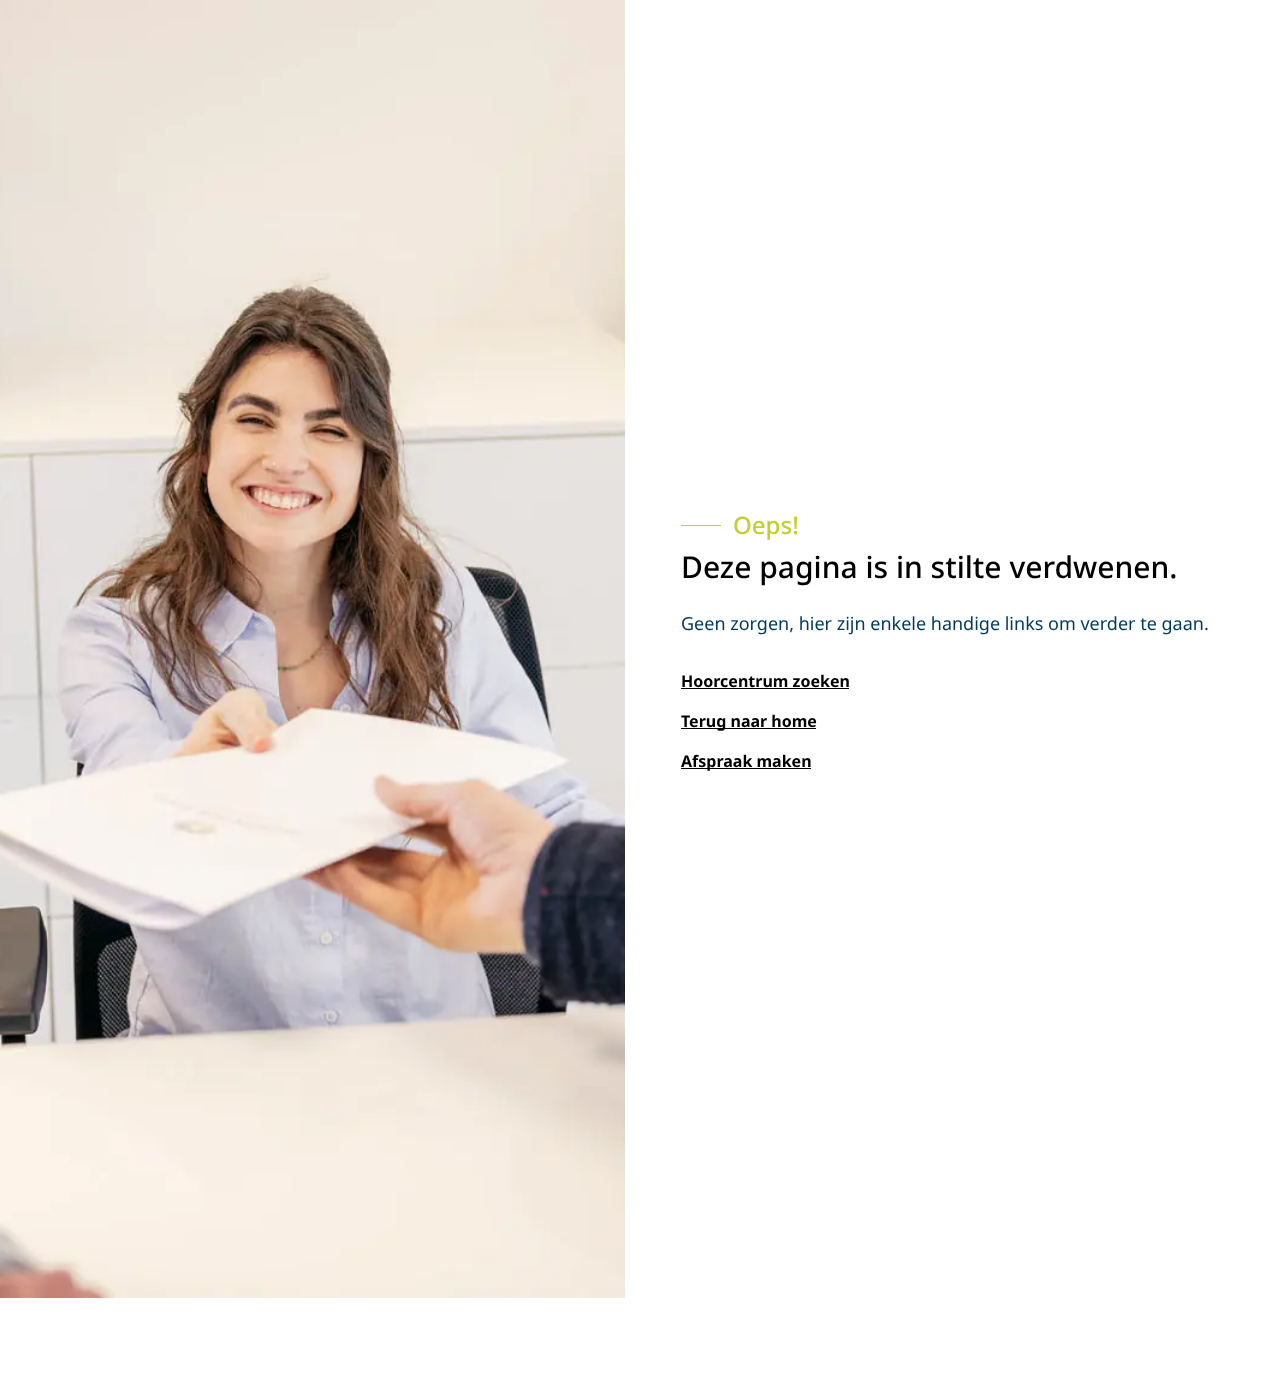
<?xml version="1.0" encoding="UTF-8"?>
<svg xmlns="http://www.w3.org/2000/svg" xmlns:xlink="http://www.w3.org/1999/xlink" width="1265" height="1394">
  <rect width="100%" height="100%" fill="#ffffff" />
  <image x="0" y="0" width="625" height="1298" xlink:href="image1.png" />
  <rect x="681" y="525" width="40" height="1" fill="#c2cf2c" />
  <rect x="681" y="688" width="168" height="1" fill="#000000" />
  <rect x="681" y="728" width="135" height="1" fill="#000000" />
  <rect x="681" y="768" width="130" height="1" fill="#000000" />
  <text x="733" y="534" style="font-family: Noto Sans; font-size: 24px; font-weight: 500; fill: #c2cf2c">Oeps!</text>
  <text x="681" y="578" style="font-family: Noto Sans; font-size: 30px; font-weight: 500; fill: #000000">Deze pagina is in stilte verdwenen.</text>
  <text x="681" y="630" style="font-family: Noto Sans; font-size: 18px; fill: #013a57">Geen zorgen, hier zijn enkele handige links om verder te gaan.</text>
  <text x="681" y="687" style="font-family: Noto Sans; font-size: 16px; font-weight: bold; fill: #000000">Hoorcentrum zoeken</text>
  <text x="681" y="727" style="font-family: Noto Sans; font-size: 16px; font-weight: bold; fill: #000000">Terug naar home</text>
  <text x="681" y="767" style="font-family: Noto Sans; font-size: 16px; font-weight: bold; fill: #000000">Afspraak maken</text>
</svg>
